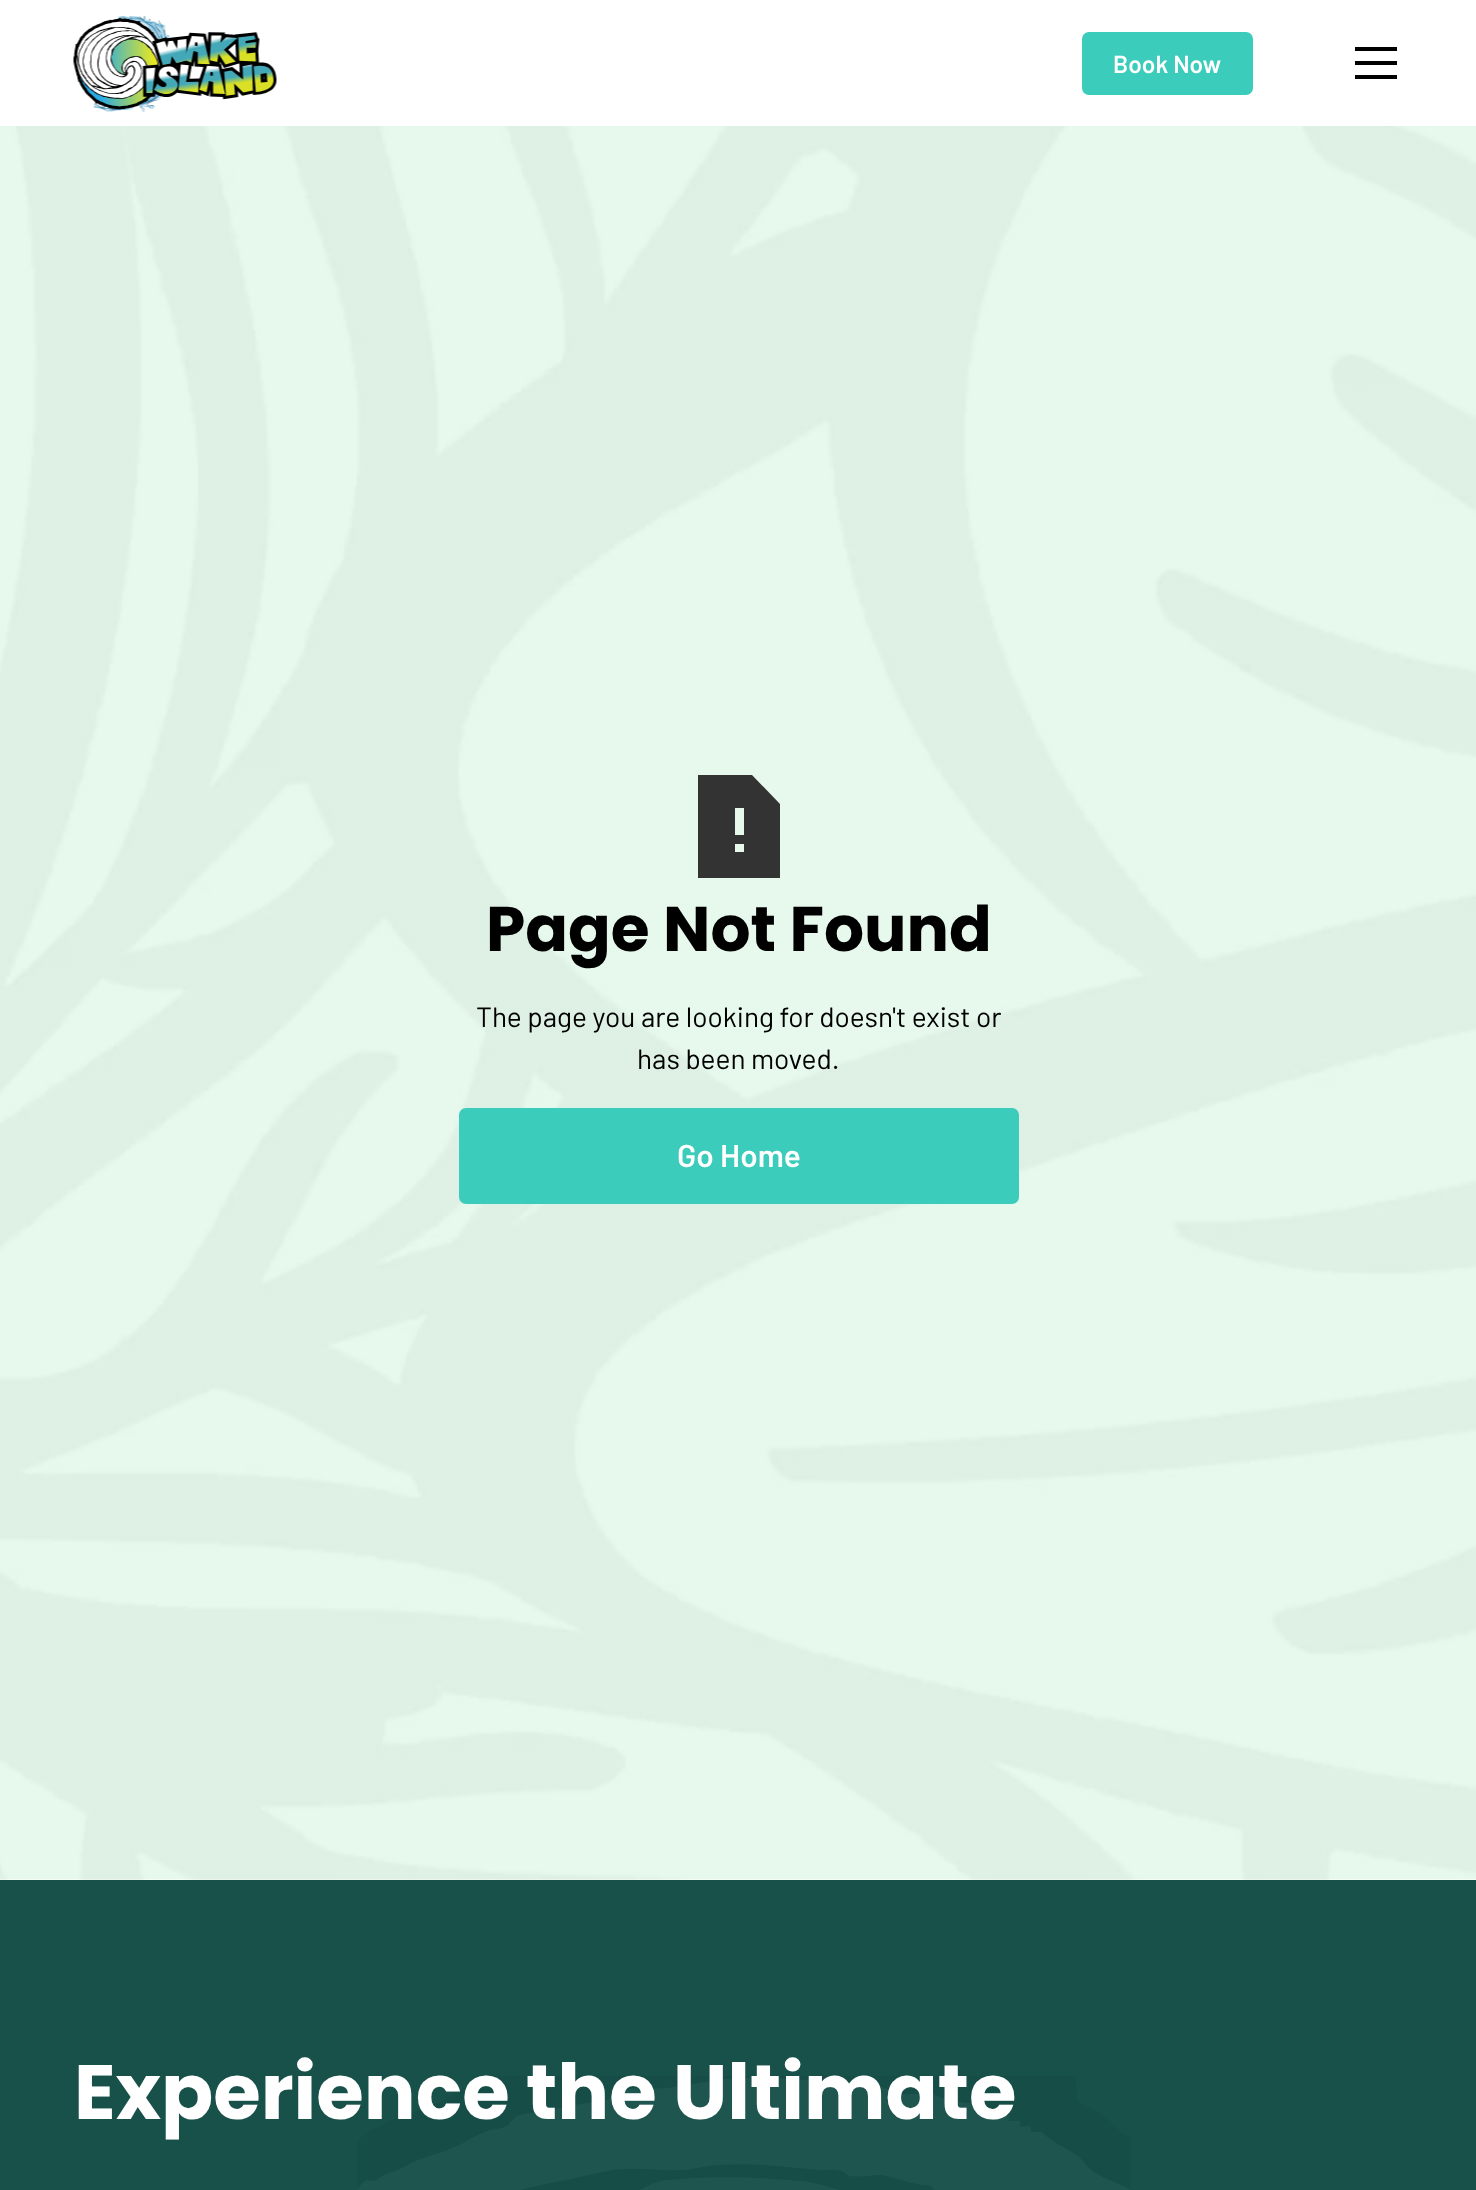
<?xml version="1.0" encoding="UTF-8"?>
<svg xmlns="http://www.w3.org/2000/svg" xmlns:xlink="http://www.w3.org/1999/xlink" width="1476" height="2190">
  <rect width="100%" height="100%" fill="#ffffff" />
  <image x="73" y="16" width="204" height="96" xlink:href="image1.png" />
  <rect x="1084" y="34" width="167" height="59" rx="5" fill="#3bccbb" stroke="#3bccbb" stroke-width="4" />
  <rect x="1355" y="47" width="42" height="4" fill="#000000" />
  <rect x="1355" y="61" width="42" height="4" fill="#000000" />
  <rect x="1355" y="75" width="42" height="4" fill="#000000" />
  <image x="0" y="126" width="1476" height="1754" xlink:href="image2.png" />
  <path d="M 698 775 h 54 l 28 29 v 74 h -82 z m 37 33 h 9 v 27 h -9 z m 0 36 h 9 v 8 h -9 z" fill="#333333" fill-rule="evenodd" />
  <rect x="461" y="1110" width="556" height="92" rx="5" fill="#3bccbb" stroke="#3bccbb" stroke-width="4" />
  <rect y="1880" width="1476" height="310" fill="#17514a" />
  <image x="357" y="2076" width="773" height="114" xlink:href="image3.png" />
  <text x="1113" y="73" style="font-family: Barlow; font-size: 24.5px; font-weight: 600; fill: #ffffff">Book Now</text>
  <text x="486" y="951" style="font-family: Poppins; font-size: 63px; font-weight: bold; fill: #000000">Page Not Found</text>
  <text x="476" y="1027" style="font-family: Barlow; font-size: 28px; fill: #000000">The page you are looking for doesn't exist or</text>
  <text x="637" y="1069" style="font-family: Barlow; font-size: 28px; fill: #000000">has been moved.</text>
  <text x="677" y="1167" style="font-family: Barlow; font-size: 31.5px; font-weight: 600; fill: #ffffff">Go Home</text>
  <text x="74" y="2119" style="font-family: Poppins; font-size: 77px; font-weight: bold; fill: #ffffff">Experience the Ultimate</text>
</svg>
